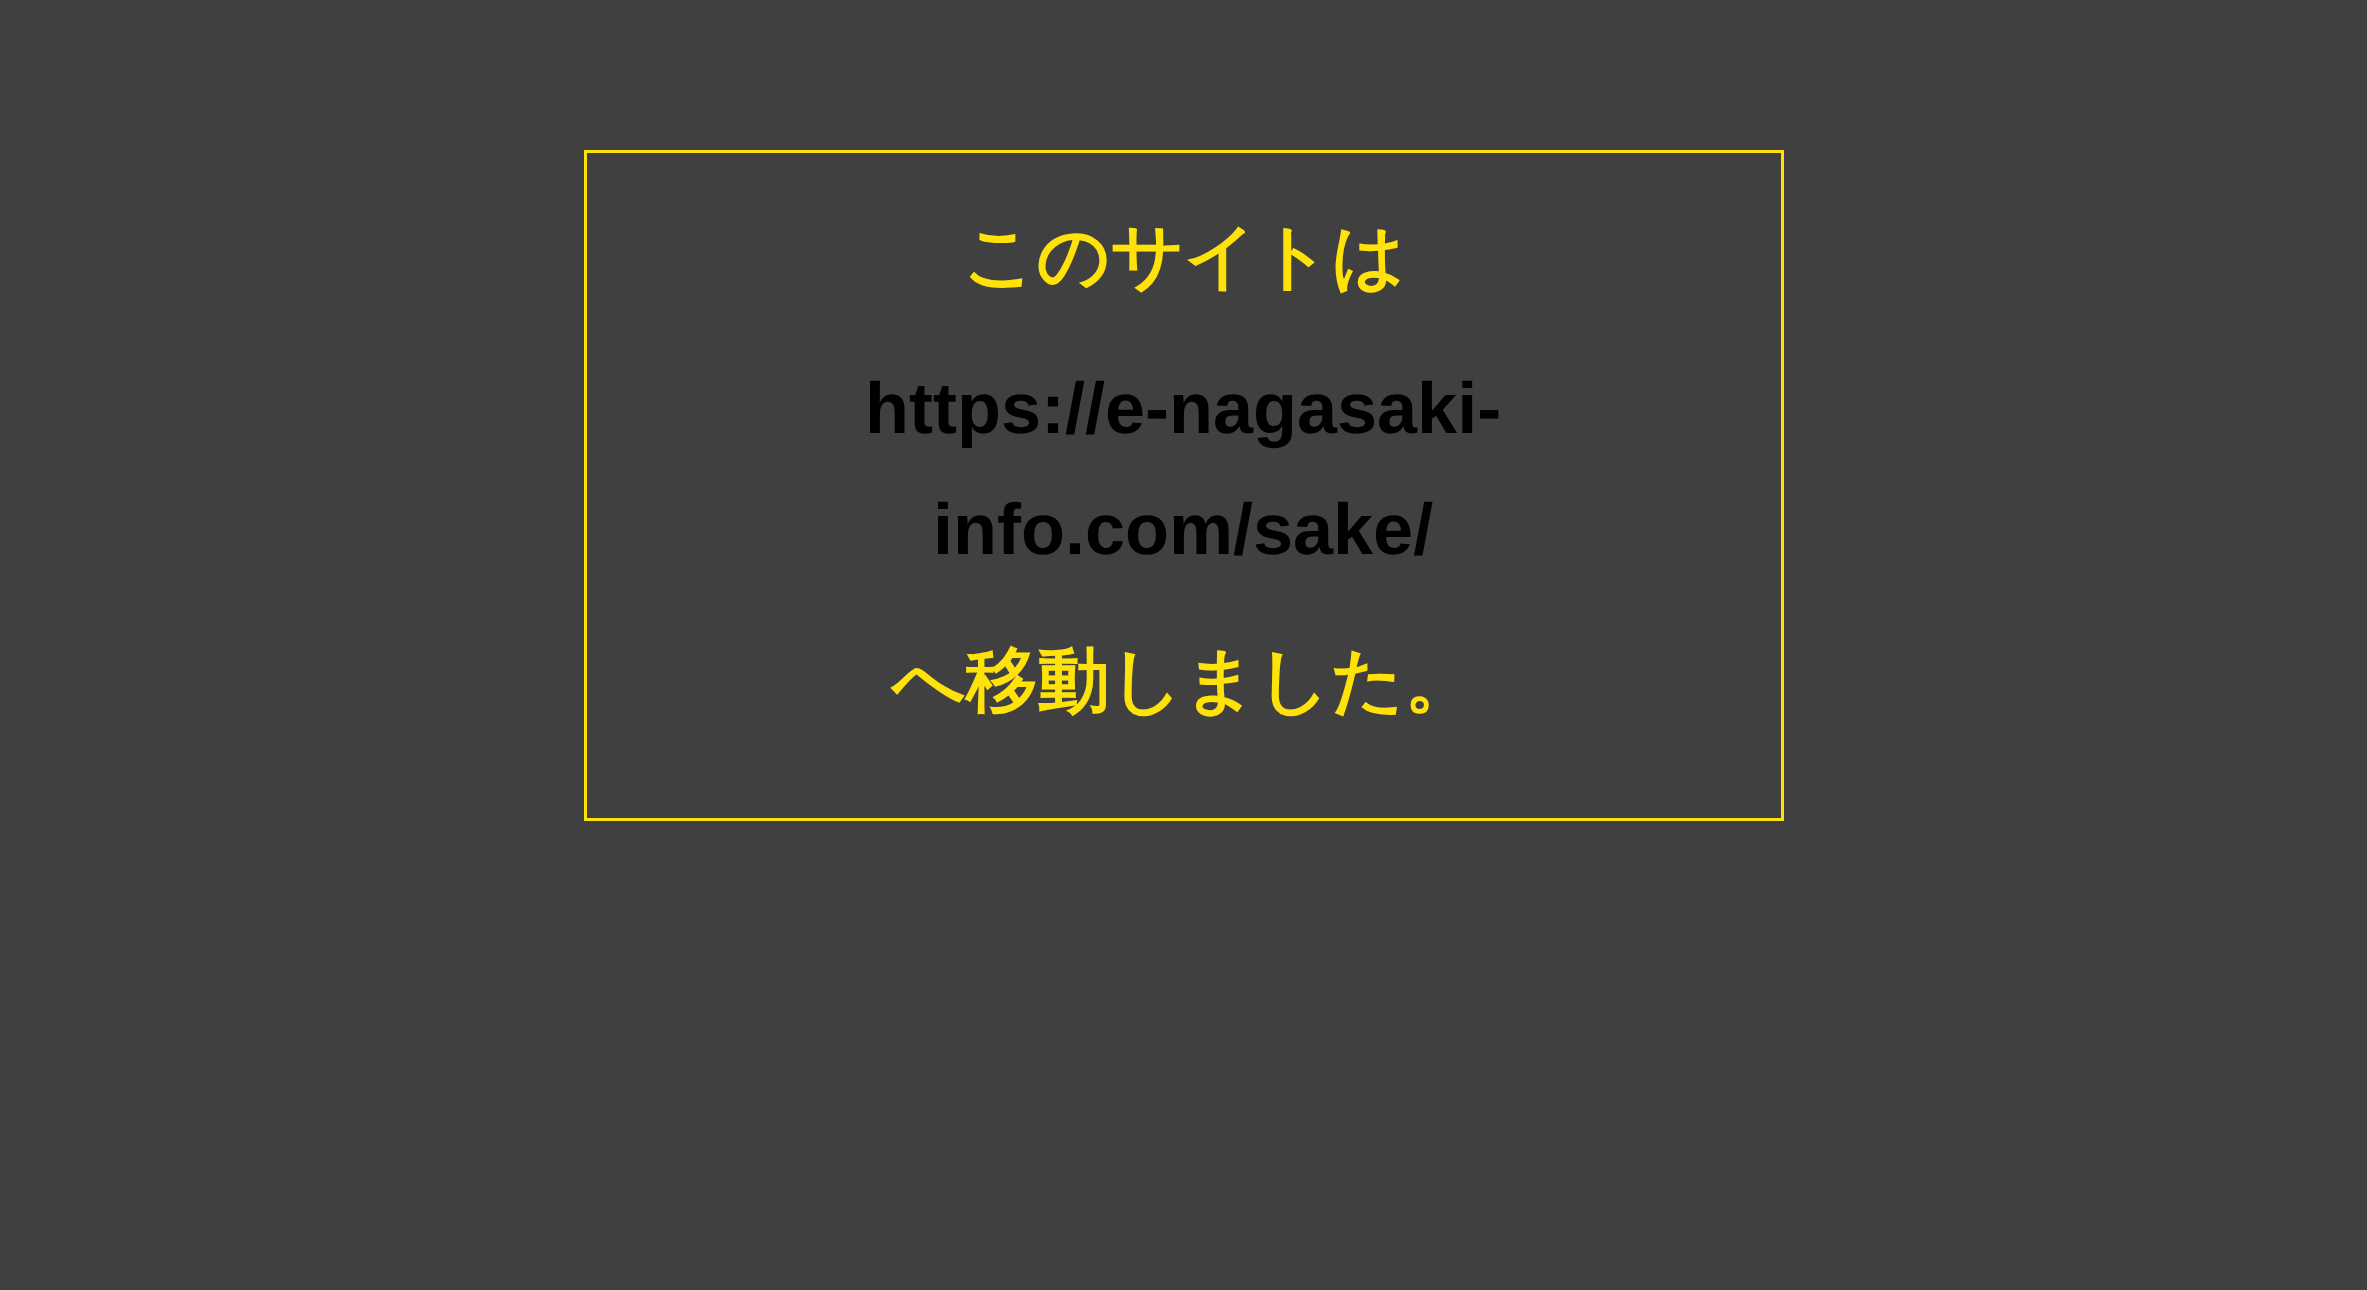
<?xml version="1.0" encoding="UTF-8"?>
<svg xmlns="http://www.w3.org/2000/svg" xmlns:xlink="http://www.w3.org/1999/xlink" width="2367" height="1290">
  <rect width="100%" height="100%" fill="#404040" />
  <rect x="585.5" y="151.5" width="1197" height="668" fill="none" stroke="#ffe20a" stroke-width="3" />
  <text x="962" y="282" style="font-family: WenQuanYi Zen Hei; font-size: 72px; font-weight: bold; fill: #ffe20a">このサイトは</text>
  <text x="865" y="433" style="font-family: Liberation Sans; font-size: 72px; font-weight: bold; fill: #000000">https://e-nagasaki-</text>
  <text x="933" y="554" style="font-family: Liberation Sans; font-size: 72px; font-weight: bold; fill: #000000">info.com/sake/</text>
  <text x="891" y="706" style="font-family: WenQuanYi Zen Hei; font-size: 72px; font-weight: bold; fill: #ffe20a">へ移動しました。</text>
</svg>
